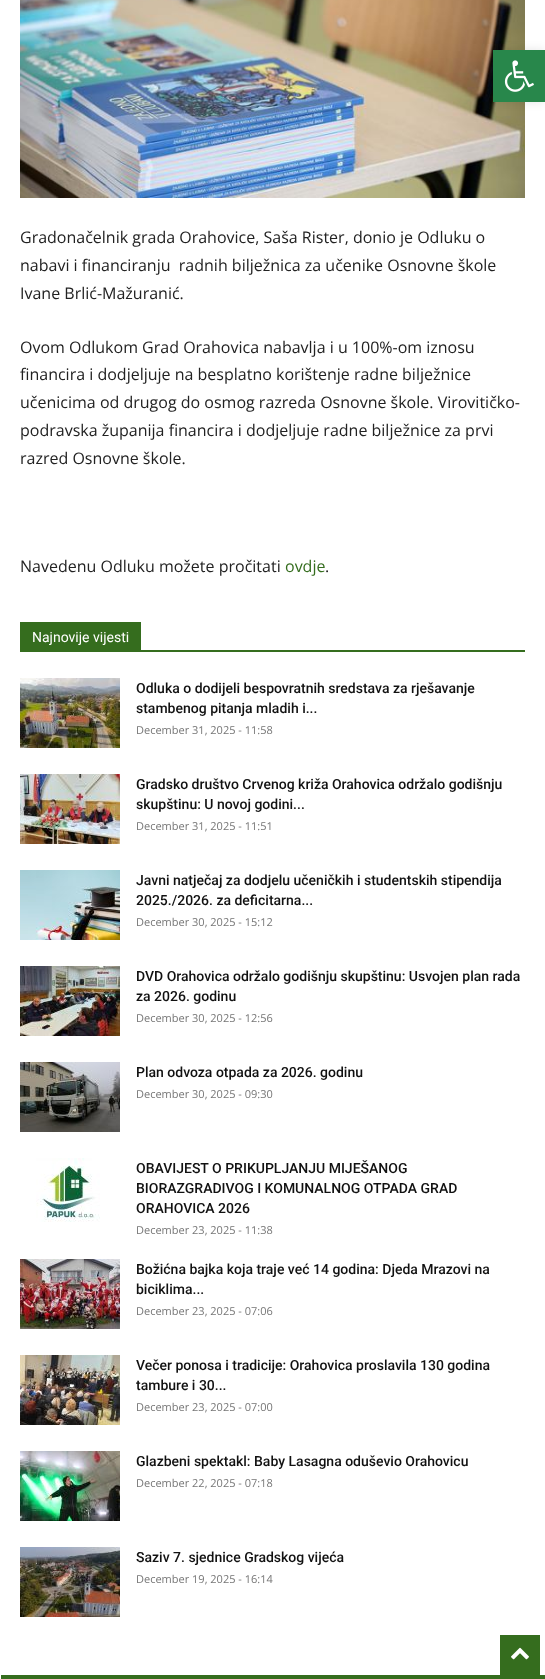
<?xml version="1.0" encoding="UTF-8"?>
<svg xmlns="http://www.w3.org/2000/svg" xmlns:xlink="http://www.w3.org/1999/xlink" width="545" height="1679">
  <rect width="100%" height="100%" fill="#ffffff" />
  <image x="20" y="0" width="505" height="198" xlink:href="image2.png" />
  <rect x="493" y="50" width="52" height="52" fill="#000000" fill-opacity="0.1" filter="blur(5px)" />
  <rect x="493" y="50" width="52" height="52" fill="#28874b" />
  <image x="504" y="60" width="30" height="32" xlink:href="image1.png" />
  <rect x="20" y="650" width="505" height="2" fill="#356d1e" />
  <rect x="20" y="622" width="121" height="28" fill="#356d1e" />
  <image x="20" y="678" width="100" height="70" xlink:href="image3.png" />
  <image x="20" y="774" width="100" height="70" xlink:href="image4.png" />
  <image x="20" y="870" width="100" height="70" xlink:href="image5.png" />
  <image x="20" y="966" width="100" height="70" xlink:href="image6.png" />
  <image x="20" y="1062" width="100" height="70" xlink:href="image7.png" />
  <image x="36" y="1158" width="64" height="64" xlink:href="image8.png" />
  <image x="20" y="1259" width="100" height="70" xlink:href="image9.png" />
  <image x="20" y="1355" width="100" height="70" xlink:href="image10.png" />
  <image x="20" y="1451" width="100" height="70" xlink:href="image11.png" />
  <image x="20" y="1547" width="100" height="70" xlink:href="image12.png" />
  <rect x="1" y="1675" width="544" height="4" fill="#356d1e" />
  <rect x="500" y="1635" width="40" height="40" fill="#356d1e" />
  <image x="511" y="1647" width="18" height="13" xlink:href="image13.png" />
  <text x="20" y="243" style="font-family: Open Sans; font-size: 16px; fill: #222222">Gradonačelnik grada Orahovice, Saša Rister, donio je Odluku o</text>
  <text x="20" y="271" style="font-family: Open Sans; font-size: 16px; fill: #222222" xml:space="preserve">nabavi i financiranju  radnih bilježnica za učenike Osnovne škole</text>
  <text x="20" y="299" style="font-family: Open Sans; font-size: 16px; fill: #222222">Ivane Brlić-Mažuranić.</text>
  <text x="20" y="353" style="font-family: Open Sans; font-size: 16px; fill: #222222">Ovom Odlukom Grad Orahovica nabavlja i u 100%-om iznosu</text>
  <text x="20" y="380" style="font-family: Open Sans; font-size: 16px; fill: #222222">financira i dodjeljuje na besplatno korištenje radne bilježnice</text>
  <text x="20" y="408" style="font-family: Open Sans; font-size: 16px; fill: #222222">učenicima od drugog do osmog razreda Osnovne škole. Virovitičko-</text>
  <text x="20" y="436" style="font-family: Open Sans; font-size: 16px; fill: #222222">podravska županija financira i dodjeljuje radne bilježnice za prvi</text>
  <text x="20" y="464" style="font-family: Open Sans; font-size: 16px; fill: #222222">razred Osnovne škole.</text>
  <text x="20" y="572" style="font-family: Open Sans; font-size: 16px; fill: #222222">Navedenu Odluku možete pročitati</text>
  <text x="285" y="572" style="font-family: Open Sans; font-size: 16px; fill: #356d1e">ovdje</text>
  <text x="325" y="572" style="font-family: Open Sans; font-size: 16px; fill: #222222">.</text>
  <text x="32" y="642" style="font-family: Roboto; font-size: 14px; fill: #ffffff">Najnovije vijesti</text>
  <text x="136" y="693" style="font-family: Roboto; font-size: 14px; font-weight: 500; fill: #111111">Odluka o dodijeli bespovratnih sredstava za rješavanje</text>
  <text x="136" y="713" style="font-family: Roboto; font-size: 14px; font-weight: 500; fill: #111111">stambenog pitanja mladih i...</text>
  <text x="136" y="734" style="font-family: Open Sans; font-size: 11px; fill: #767676">December 31, 2025 - 11:58</text>
  <text x="136" y="789" style="font-family: Roboto; font-size: 14px; font-weight: 500; fill: #111111">Gradsko društvo Crvenog križa Orahovica održalo godišnju</text>
  <text x="136" y="809" style="font-family: Roboto; font-size: 14px; font-weight: 500; fill: #111111">skupštinu: U novoj godini...</text>
  <text x="136" y="830" style="font-family: Open Sans; font-size: 11px; fill: #767676">December 31, 2025 - 11:51</text>
  <text x="136" y="885" style="font-family: Roboto; font-size: 14px; font-weight: 500; fill: #111111">Javni natječaj za dodjelu učeničkih i studentskih stipendija</text>
  <text x="136" y="905" style="font-family: Roboto; font-size: 14px; font-weight: 500; fill: #111111">2025./2026. za deficitarna...</text>
  <text x="136" y="926" style="font-family: Open Sans; font-size: 11px; fill: #767676">December 30, 2025 - 15:12</text>
  <text x="136" y="981" style="font-family: Roboto; font-size: 14px; font-weight: 500; fill: #111111">DVD Orahovica održalo godišnju skupštinu: Usvojen plan rada</text>
  <text x="136" y="1001" style="font-family: Roboto; font-size: 14px; font-weight: 500; fill: #111111">za 2026. godinu</text>
  <text x="136" y="1022" style="font-family: Open Sans; font-size: 11px; fill: #767676">December 30, 2025 - 12:56</text>
  <text x="136" y="1077" style="font-family: Roboto; font-size: 14px; font-weight: 500; fill: #111111">Plan odvoza otpada za 2026. godinu</text>
  <text x="136" y="1098" style="font-family: Open Sans; font-size: 11px; fill: #767676">December 30, 2025 - 09:30</text>
  <text x="136" y="1173" style="font-family: Roboto; font-size: 14px; font-weight: 500; fill: #111111">OBAVIJEST O PRIKUPLJANJU MIJEŠANOG</text>
  <text x="136" y="1193" style="font-family: Roboto; font-size: 14px; font-weight: 500; fill: #111111">BIORAZGRADIVOG I KOMUNALNOG OTPADA GRAD</text>
  <text x="136" y="1213" style="font-family: Roboto; font-size: 14px; font-weight: 500; fill: #111111">ORAHOVICA 2026</text>
  <text x="136" y="1234" style="font-family: Open Sans; font-size: 11px; fill: #767676">December 23, 2025 - 11:38</text>
  <text x="136" y="1274" style="font-family: Roboto; font-size: 14px; font-weight: 500; fill: #111111">Božićna bajka koja traje već 14 godina: Djeda Mrazovi na</text>
  <text x="136" y="1294" style="font-family: Roboto; font-size: 14px; font-weight: 500; fill: #111111">biciklima...</text>
  <text x="136" y="1315" style="font-family: Open Sans; font-size: 11px; fill: #767676">December 23, 2025 - 07:06</text>
  <text x="136" y="1370" style="font-family: Roboto; font-size: 14px; font-weight: 500; fill: #111111">Večer ponosa i tradicije: Orahovica proslavila 130 godina</text>
  <text x="136" y="1390" style="font-family: Roboto; font-size: 14px; font-weight: 500; fill: #111111">tambure i 30...</text>
  <text x="136" y="1411" style="font-family: Open Sans; font-size: 11px; fill: #767676">December 23, 2025 - 07:00</text>
  <text x="136" y="1466" style="font-family: Roboto; font-size: 14px; font-weight: 500; fill: #111111">Glazbeni spektakl: Baby Lasagna oduševio Orahovicu</text>
  <text x="136" y="1487" style="font-family: Open Sans; font-size: 11px; fill: #767676">December 22, 2025 - 07:18</text>
  <text x="136" y="1562" style="font-family: Roboto; font-size: 14px; font-weight: 500; fill: #111111">Saziv 7. sjednice Gradskog vijeća</text>
  <text x="136" y="1583" style="font-family: Open Sans; font-size: 11px; fill: #767676">December 19, 2025 - 16:14</text>
</svg>
